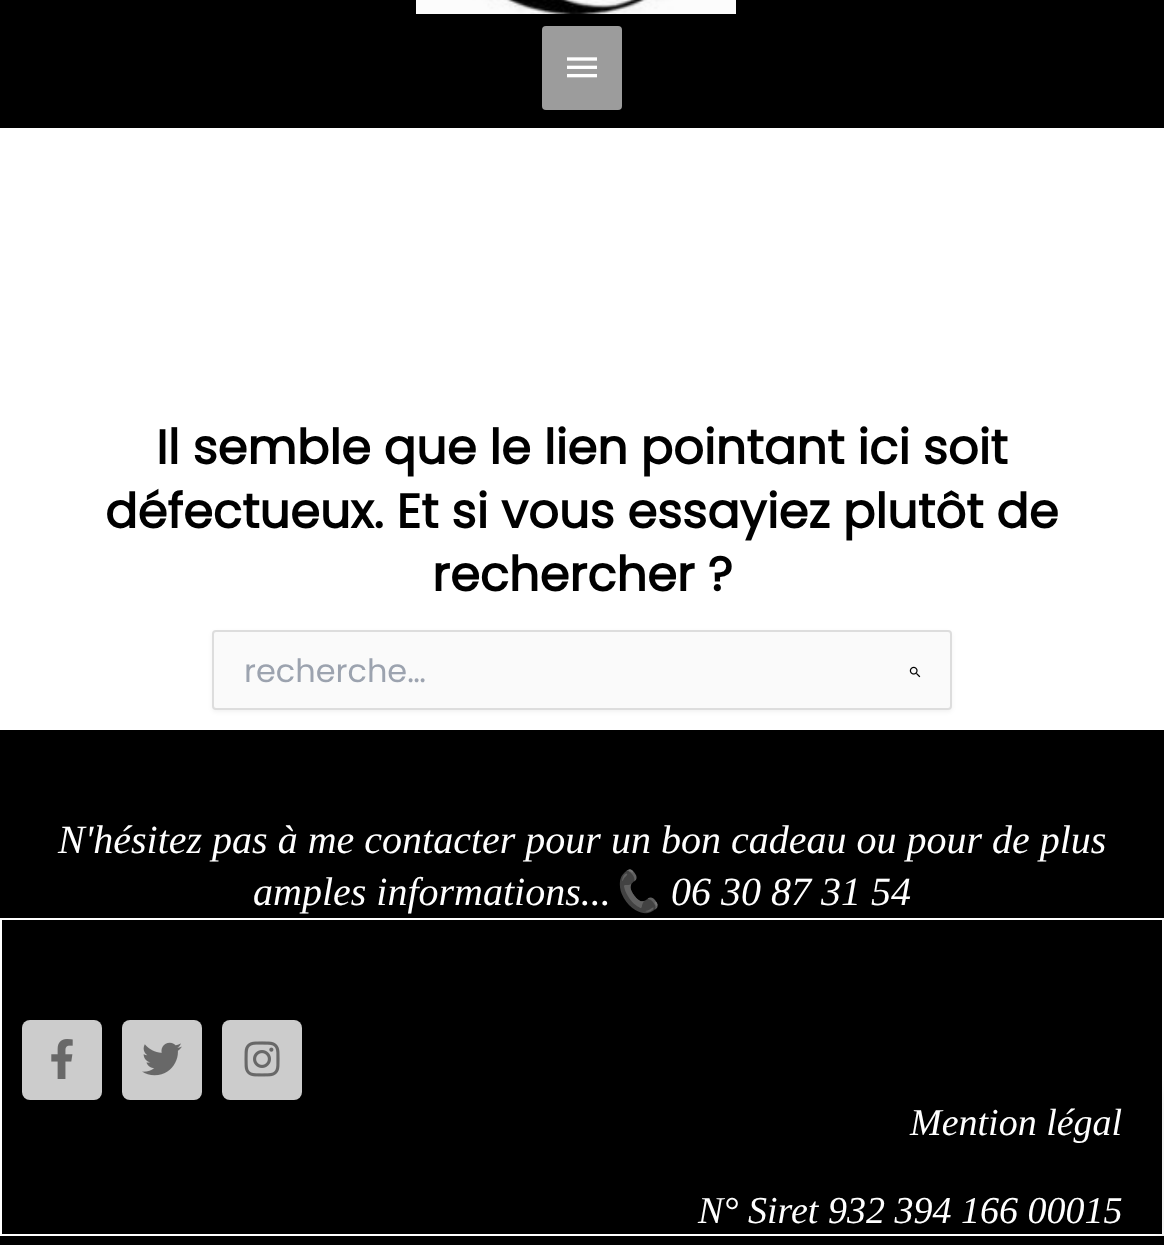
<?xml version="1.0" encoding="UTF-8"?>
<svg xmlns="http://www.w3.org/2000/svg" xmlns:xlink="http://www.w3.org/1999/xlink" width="1164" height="1245">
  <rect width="100%" height="100%" fill="#000000" />
  <image x="416" y="0" width="320" height="14" xlink:href="image1.png" />
  <rect x="542" y="26" width="80" height="84" rx="4" fill="#9c9c9c" />
  <image x="567" y="57" width="30" height="21" xlink:href="image2.png" />
  <rect y="128" width="1164" height="602" fill="#ffffff" />
  <rect x="212" y="632" width="740" height="80" rx="4" fill="#000000" fill-opacity="0.05" filter="blur(2px)" />
  <rect x="213" y="631" width="738" height="78" rx="3" fill="#fafafa" stroke="#dddddd" stroke-width="2" />
  <image x="909" y="666" width="12" height="12" xlink:href="image3.png" />
  <rect x="1" y="919" width="1162" height="316" fill="none" stroke="#ffffff" stroke-width="2" />
  <rect x="22" y="1020" width="80" height="80" rx="8" fill="#cccccc" />
  <image x="51" y="1039" width="22" height="40" xlink:href="image4.png" />
  <rect x="122" y="1020" width="80" height="80" rx="8" fill="#cccccc" />
  <image x="142" y="1042" width="40" height="34" xlink:href="image5.png" />
  <rect x="222" y="1020" width="80" height="80" rx="8" fill="#cccccc" />
  <image x="244" y="1041" width="36" height="36" xlink:href="image6.png" />
  <rect x="1164" y="1092" width="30" height="152" fill="#000000" fill-opacity="0.1" filter="blur(10px)" />
  <text x="156" y="464" style="font-family: Poppins; font-size: 48px; font-weight: bold; fill: #000000">Il semble que le lien pointant ici soit</text>
  <text x="105" y="528" style="font-family: Poppins; font-size: 48px; font-weight: bold; fill: #000000">défectueux. Et si vous essayiez plutôt de</text>
  <text x="432" y="591" style="font-family: Poppins; font-size: 48px; font-weight: bold; fill: #000000">rechercher ?</text>
  <text x="244" y="682" style="font-family: Poppins; font-size: 32px; fill: #9ca3af">recherche…</text>
  <text x="58" y="853" style="font-family: Liberation Serif; font-size: 40px; font-style: italic; fill: #ffffff">N'hésitez pas à me contacter pour un bon cadeau ou pour de plus</text>
  <text x="253" y="905" style="font-family: Liberation Serif; font-size: 40px; font-style: italic; fill: #ffffff">amples informations...</text>
  <text x="611" y="905" style="font-family: Noto Color Emoji; font-size: 40px; font-style: italic; fill: #ffffff">📞</text>
  <text x="671" y="905" style="font-family: Liberation Serif; font-size: 40px; font-style: italic; fill: #ffffff">06 30 87 31 54</text>
  <text x="910" y="1135" style="font-family: Liberation Serif; font-size: 38px; font-style: italic; fill: #ffffff">Mention légal</text>
  <text x="698" y="1223" style="font-family: Liberation Serif; font-size: 38px; font-style: italic; fill: #ffffff">N° Siret 932 394 166 00015</text>
</svg>
